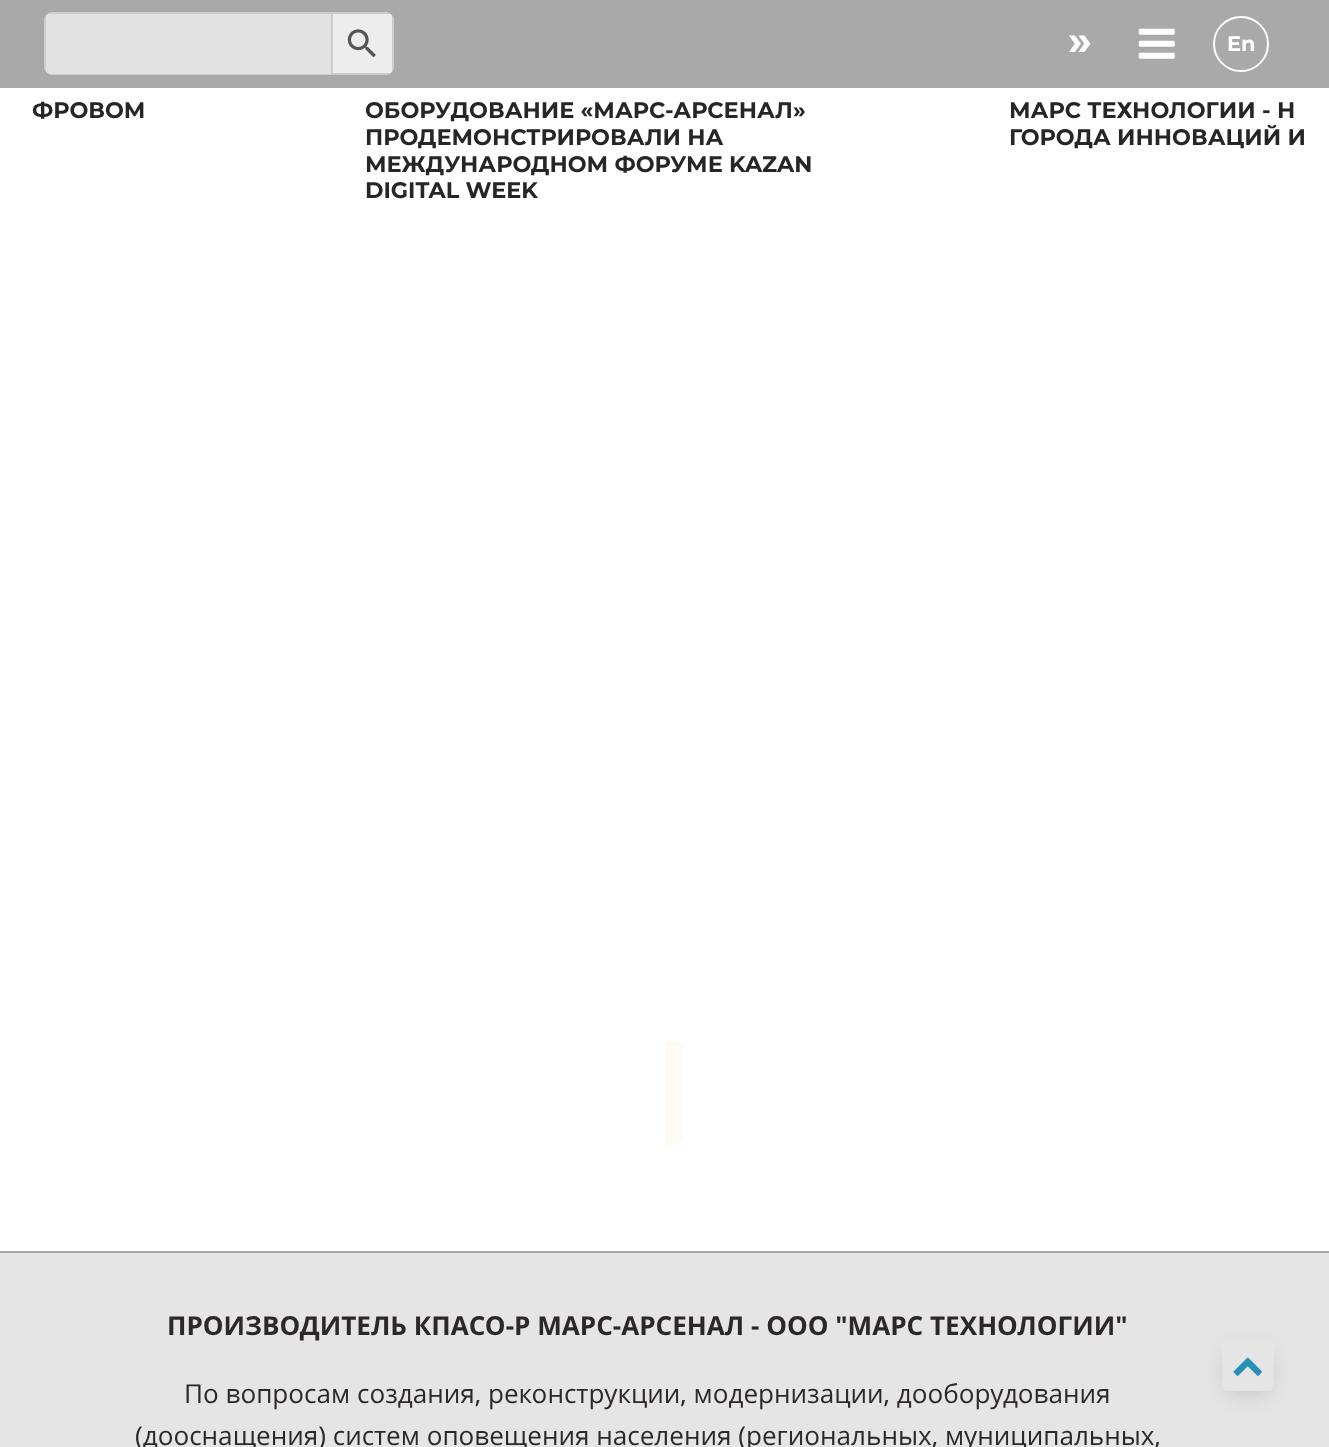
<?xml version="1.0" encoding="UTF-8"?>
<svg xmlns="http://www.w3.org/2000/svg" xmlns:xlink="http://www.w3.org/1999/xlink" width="1329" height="1447">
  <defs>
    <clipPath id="clip1"><rect x="44" y="12" width="350" height="63" rx="9" /></clipPath>
    <clipPath id="clip2"><path d="M 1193 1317 h 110 v 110 h -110 z m 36 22 h 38 c 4 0 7 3 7 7 v 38 c 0 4 -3 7 -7 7 h -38 c -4 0 -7 -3 -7 -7 v -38 c 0 -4 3 -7 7 -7 z" clip-rule="evenodd" /></clipPath>
  </defs>
  <rect width="100%" height="100%" fill="#ffffff" />
  <rect width="1329" height="88" fill="#a9a9a9" />
  <path d="M 53 12 h 278 v 63 h -278 c -5 0 -9 -4 -9 -9 v -45 c 0 -5 4 -9 9 -9 z" fill="#e2e2e2" />
  <g clip-path="url(#clip1)">
    <rect x="44" y="12" width="287" height="2" fill="#cccccc" />
    <rect x="44" y="74" width="287" height="1" fill="#cccccc" />
    <rect x="44" y="12" width="2" height="63" fill="#cccccc" />
  </g>
  <path d="M 331 12 h 54 c 5 0 9 4 9 9 v 45 c 0 5 -4 9 -9 9 h -54 z" fill="#ededed" />
  <path d="M 331 12 v 63 h 54 c 2 0 4 -1 6 -2 h -58 v -59 h 58 c -2 -1 -4 -2 -6 -2 z m 63 9 c 0 -2 -1 -4 -2 -6 v 57 c 1 -2 2 -4 2 -6 z" fill="#cccccc" fill-rule="evenodd" />
  <image x="347" y="29" width="29" height="29" xlink:href="image1.png" />
  <image x="1138" y="28" width="37" height="31" xlink:href="image2.png" />
  <circle cx="1241" cy="44" r="27" fill="none" stroke="#ffffff" stroke-width="2" />
  <path d="M 245 1041 h 429 c 5 0 9 4 9 9 v 87 c 0 5 -4 9 -9 9 h -429 z" fill="#fefaf6" />
  <rect x="245" y="1041" width="420" height="105" fill="#ffffff" />
  <rect y="1253" width="1329" height="194" fill="#e5e5e5" />
  <rect y="1251" width="1329" height="2" fill="#a9a9a9" />
  <g clip-path="url(#clip2)">
    <rect x="1239" y="1363" width="18" height="18" fill="#1e1e1e" filter="blur(15px)" />
  </g>
  <image x="1233" y="1357" width="29" height="19" xlink:href="image3.png" />
  <text x="1068" y="55" style="font-family: Montserrat; font-size: 42px; font-weight: bold; fill: #ffffff">»</text>
  <text x="1227" y="51" style="font-family: Montserrat; font-size: 21px; font-weight: bold; fill: #ffffff">En</text>
  <text x="32" y="118" style="font-family: Montserrat; font-size: 22.4px; font-weight: bold; fill: #262626">ФРОВОМ</text>
  <text x="365" y="118" style="font-family: Montserrat; font-size: 22.4px; font-weight: bold; fill: #262626">ОБОРУДОВАНИЕ «МАРС-АРСЕНАЛ»</text>
  <text x="365" y="145" style="font-family: Montserrat; font-size: 22.4px; font-weight: bold; fill: #262626">ПРОДЕМОНСТРИРОВАЛИ НА</text>
  <text x="365" y="172" style="font-family: Montserrat; font-size: 22.4px; font-weight: bold; fill: #262626">МЕЖДУНАРОДНОМ ФОРУМЕ KAZAN</text>
  <text x="365" y="198" style="font-family: Montserrat; font-size: 22.4px; font-weight: bold; fill: #262626">DIGITAL WEEK</text>
  <text x="1009" y="118" style="font-family: Montserrat; font-size: 22.4px; font-weight: bold; fill: #262626">МАРС ТЕХНОЛОГИИ - Н</text>
  <text x="1009" y="145" style="font-family: Montserrat; font-size: 22.4px; font-weight: bold; fill: #262626">ГОРОДА ИННОВАЦИЙ И</text>
  <text x="167" y="1335" style="font-family: Open Sans; font-size: 26.1px; font-weight: bold; fill: #2d2828">ПРОИЗВОДИТЕЛЬ КПАСО-Р МАРС-АРСЕНАЛ - ООО "МАРС ТЕХНОЛОГИИ"</text>
  <text x="184" y="1403" style="font-family: Open Sans; font-size: 26.1px; fill: #2d2828">По вопросам создания, реконструкции, модернизации, дооборудования</text>
  <text x="135" y="1445" style="font-family: Open Sans; font-size: 26.1px; fill: #2d2828">(дооснащения) систем оповещения населения (региональных, муниципальных,</text>
</svg>
